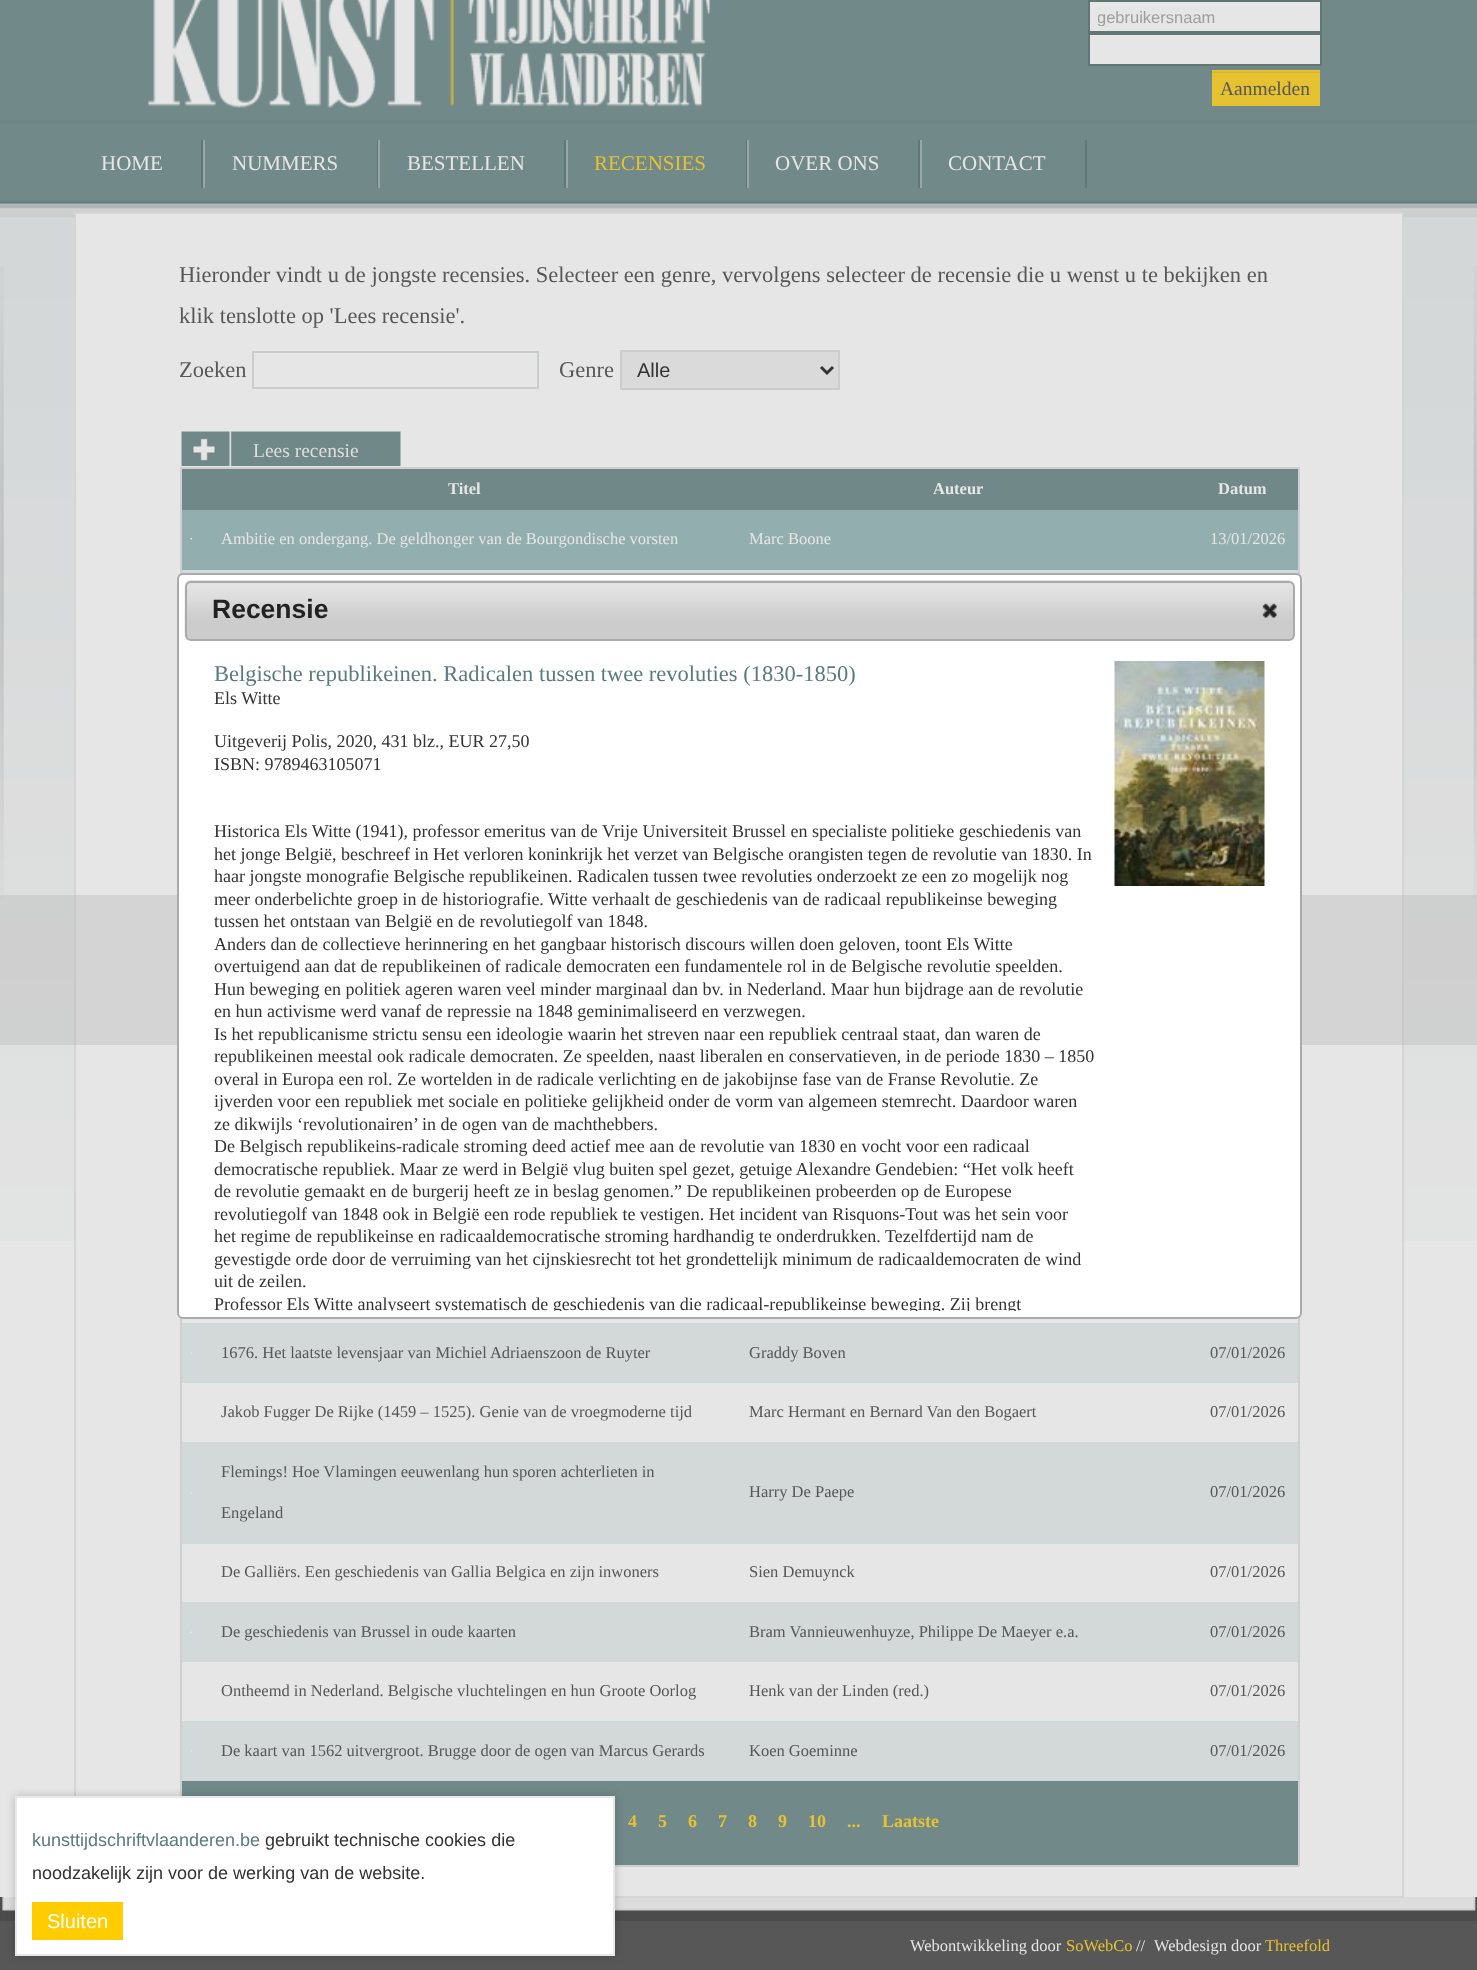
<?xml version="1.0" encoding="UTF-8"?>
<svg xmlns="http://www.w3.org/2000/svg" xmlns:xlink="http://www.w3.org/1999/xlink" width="1477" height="1970">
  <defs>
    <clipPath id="clip1"><rect x="1098" y="8" width="213" height="18" /></clipPath>
    <clipPath id="clip2"><rect x="185" y="641" width="1110" height="670" /></clipPath>
  </defs>
  <rect width="100%" height="100%" fill="#e6e6e6" />
  <rect width="1477" height="200" fill="#728989" />
  <image x="148" y="0" width="562" height="108" xlink:href="image1.png" />
  <rect x="1089" y="1" width="232" height="31" fill="#e6e6e6" stroke="#637676" stroke-width="2" />
  <rect x="1089" y="34" width="232" height="31" fill="#e6e6e6" stroke="#637676" stroke-width="2" />
  <image x="1212" y="70" width="108" height="36" xlink:href="image2.png" />
  <rect y="120" width="1477" height="4" fill="#6f8686" />
  <rect x="201" y="140" width="2" height="48" fill="#637676" />
  <rect x="377" y="140" width="1" height="48" fill="#637676" />
  <rect x="203" y="140" width="2" height="48" fill="#97a7a7" />
  <rect x="564" y="140" width="2" height="48" fill="#637676" />
  <rect x="378" y="140" width="2" height="48" fill="#97a7a7" />
  <rect x="746" y="140" width="1" height="48" fill="#637676" />
  <rect x="566" y="140" width="2" height="48" fill="#97a7a7" />
  <rect x="918" y="140" width="2" height="48" fill="#637676" />
  <rect x="747" y="140" width="2" height="48" fill="#97a7a7" />
  <rect x="1085" y="140" width="2" height="48" fill="#637676" />
  <rect x="920" y="140" width="2" height="48" fill="#97a7a7" />
  <image x="0" y="200" width="1477" height="1041" xlink:href="image3.png" />
  <image x="0" y="266" width="1477" height="633" xlink:href="image4.png" />
  <rect x="76" y="214" width="1326" height="1027" fill="#e6e6e6" />
  <image x="0" y="1897" width="1477" height="24" xlink:href="image9.png" />
  <rect x="75" y="213" width="1328" height="1684" fill="none" stroke="#d5d5d5" stroke-width="2" />
  <rect x="253" y="352" width="285" height="36" fill="none" stroke="#c9cdcd" stroke-width="2" />
  <rect x="621" y="351" width="218" height="38" fill="#dadada" stroke="#c9cdcd" stroke-width="2" />
  <path d="M 821 367 l 6 6 l 6 -6" fill="none" stroke="#333333" stroke-width="3" />
  <image x="181" y="431" width="220" height="35" xlink:href="image5.png" />
  <rect x="180" y="467" width="1119" height="2" fill="#cecfce" />
  <rect x="1298" y="467" width="2" height="1399" fill="#cecfce" />
  <rect x="615" y="1865" width="684" height="2" fill="#cecfce" />
  <rect x="180" y="467" width="2" height="1329" fill="#cecfce" />
  <rect x="182" y="469" width="1116" height="41" fill="#718888" />
  <rect x="182" y="510" width="1116" height="60" fill="#92aeae" />
  <image x="190" y="538" width="2" height="2" xlink:href="image6.png" />
  <rect x="182" y="570" width="1116" height="4" fill="#d3d9d9" />
  <rect x="182" y="1323" width="1116" height="60" fill="#d3d9d9" />
  <image x="190" y="1352" width="2" height="2" xlink:href="image7.png" />
  <rect x="182" y="1442" width="1116" height="102" fill="#d3d9d9" />
  <image x="190" y="1492" width="2" height="2" xlink:href="image8.png" />
  <rect x="182" y="1602" width="1116" height="60" fill="#d3d9d9" />
  <image x="190" y="1631" width="2" height="2" xlink:href="image7.png" />
  <rect x="182" y="1721" width="1116" height="60" fill="#d3d9d9" />
  <image x="190" y="1750" width="2" height="2" xlink:href="image8.png" />
  <rect x="182" y="1781" width="1116" height="84" fill="#728989" />
  <rect y="1921" width="1477" height="49" fill="#575757" />
  <rect x="15" y="1796" width="600" height="160" fill="#000000" fill-opacity="0.2" filter="blur(4px)" />
  <rect x="16" y="1797" width="598" height="158" fill="#ffffff" stroke="#e8e8e8" stroke-width="2" />
  <rect x="32" y="1902" width="91" height="38" fill="#ffcc00" />
  <rect y="895" width="1477" height="150" fill="#ababab" fill-opacity="0.3" />
  <rect x="178" y="574" width="1123" height="744" rx="5" fill="#ffffff" stroke="#aaaaaa" stroke-width="2" />
  <image x="184" y="580" width="1111" height="59" xlink:href="image10.png" />
  <rect x="186" y="582" width="1108" height="58" rx="5" fill="none" stroke="#aaaaaa" stroke-width="2" />
  <image x="1262" y="603" width="15" height="15" xlink:href="image11.png" />
  <image x="1114" y="661" width="151" height="225" xlink:href="image12.png" />
  <g clip-path="url(#clip1)">
    <text x="1097" y="23" style="font-family: Liberation Sans; font-size: 16.5px; fill: #9e9e9e">gebruikersnaam</text>
  </g>
  <text x="1220" y="95" style="font-family: Liberation Serif; font-size: 19.5px; fill: #575757">Aanmelden</text>
  <text x="101" y="170" style="font-family: Liberation Serif; font-size: 21px; fill: #e6e6e6">HOME</text>
  <text x="232" y="170" style="font-family: Liberation Serif; font-size: 21px; fill: #e6e6e6">NUMMERS</text>
  <text x="407" y="170" style="font-family: Liberation Serif; font-size: 21px; fill: #e6e6e6">BESTELLEN</text>
  <text x="594" y="170" style="font-family: Liberation Serif; font-size: 21px; fill: #e6c233">RECENSIES</text>
  <text x="775" y="170" style="font-family: Liberation Serif; font-size: 21px; fill: #e6e6e6">OVER ONS</text>
  <text x="948" y="170" style="font-family: Liberation Serif; font-size: 21px; fill: #e6e6e6">CONTACT</text>
  <text x="179" y="282" style="font-family: Liberation Serif; font-size: 22.5px; fill: #575757">Hieronder vindt u de jongste recensies. Selecteer een genre, vervolgens selecteer de recensie die u wenst u te bekijken en</text>
  <text x="179" y="323" style="font-family: Liberation Serif; font-size: 22.5px; fill: #575757">klik tenslotte op 'Lees recensie'.</text>
  <text x="179" y="377" style="font-family: Liberation Serif; font-size: 22.5px; fill: #575757">Zoeken</text>
  <text x="559" y="377" style="font-family: Liberation Serif; font-size: 22.5px; fill: #575757">Genre</text>
  <text x="637" y="377" style="font-family: Liberation Sans; font-size: 20px; fill: #333333">Alle</text>
  <text x="253" y="457" style="font-family: Liberation Serif; font-size: 19.5px; fill: #dedede">Lees recensie</text>
  <text x="448" y="494" style="font-family: Liberation Serif; font-size: 16.5px; font-weight: bold; fill: #e6e6e6">Titel</text>
  <text x="933" y="494" style="font-family: Liberation Serif; font-size: 16.5px; font-weight: bold; fill: #e6e6e6">Auteur</text>
  <text x="1218" y="494" style="font-family: Liberation Serif; font-size: 16.5px; font-weight: bold; fill: #e6e6e6">Datum</text>
  <text x="221" y="544" style="font-family: Liberation Serif; font-size: 16.5px; fill: #e6e6e6">Ambitie en ondergang. De geldhonger van de Bourgondische vorsten</text>
  <text x="749" y="544" style="font-family: Liberation Serif; font-size: 16.5px; fill: #e6e6e6">Marc Boone</text>
  <text x="1210" y="544" style="font-family: Liberation Serif; font-size: 16.5px; fill: #e6e6e6">13/01/2026</text>
  <text x="221" y="1358" style="font-family: Liberation Serif; font-size: 16.5px; fill: #575757">1676. Het laatste levensjaar van Michiel Adriaenszoon de Ruyter</text>
  <text x="749" y="1358" style="font-family: Liberation Serif; font-size: 16.5px; fill: #575757">Graddy Boven</text>
  <text x="1210" y="1358" style="font-family: Liberation Serif; font-size: 16.5px; fill: #575757">07/01/2026</text>
  <text x="221" y="1417" style="font-family: Liberation Serif; font-size: 16.5px; fill: #575757">Jakob Fugger De Rijke (1459 – 1525). Genie van de vroegmoderne tijd</text>
  <text x="749" y="1417" style="font-family: Liberation Serif; font-size: 16.5px; fill: #575757">Marc Hermant en Bernard Van den Bogaert</text>
  <text x="1210" y="1417" style="font-family: Liberation Serif; font-size: 16.5px; fill: #575757">07/01/2026</text>
  <text x="221" y="1477" style="font-family: Liberation Serif; font-size: 16.5px; fill: #575757">Flemings! Hoe Vlamingen eeuwenlang hun sporen achterlieten in</text>
  <text x="221" y="1518" style="font-family: Liberation Serif; font-size: 16.5px; fill: #575757">Engeland</text>
  <text x="749" y="1497" style="font-family: Liberation Serif; font-size: 16.5px; fill: #575757">Harry De Paepe</text>
  <text x="1210" y="1497" style="font-family: Liberation Serif; font-size: 16.5px; fill: #575757">07/01/2026</text>
  <text x="221" y="1577" style="font-family: Liberation Serif; font-size: 16.5px; fill: #575757">De Galliërs. Een geschiedenis van Gallia Belgica en zijn inwoners</text>
  <text x="749" y="1577" style="font-family: Liberation Serif; font-size: 16.5px; fill: #575757">Sien Demuynck</text>
  <text x="1210" y="1577" style="font-family: Liberation Serif; font-size: 16.5px; fill: #575757">07/01/2026</text>
  <text x="221" y="1637" style="font-family: Liberation Serif; font-size: 16.5px; fill: #575757">De geschiedenis van Brussel in oude kaarten</text>
  <text x="749" y="1637" style="font-family: Liberation Serif; font-size: 16.5px; fill: #575757">Bram Vannieuwenhuyze, Philippe De Maeyer e.a.</text>
  <text x="1210" y="1637" style="font-family: Liberation Serif; font-size: 16.5px; fill: #575757">07/01/2026</text>
  <text x="221" y="1696" style="font-family: Liberation Serif; font-size: 16.5px; fill: #575757">Ontheemd in Nederland. Belgische vluchtelingen en hun Groote Oorlog</text>
  <text x="749" y="1696" style="font-family: Liberation Serif; font-size: 16.5px; fill: #575757">Henk van der Linden (red.)</text>
  <text x="1210" y="1696" style="font-family: Liberation Serif; font-size: 16.5px; fill: #575757">07/01/2026</text>
  <text x="221" y="1756" style="font-family: Liberation Serif; font-size: 16.5px; fill: #575757">De kaart van 1562 uitvergroot. Brugge door de ogen van Marcus Gerards</text>
  <text x="749" y="1756" style="font-family: Liberation Serif; font-size: 16.5px; fill: #575757">Koen Goeminne</text>
  <text x="1210" y="1756" style="font-family: Liberation Serif; font-size: 16.5px; fill: #575757">07/01/2026</text>
  <text x="628" y="1827" style="font-family: Liberation Serif; font-size: 18px; font-weight: bold; fill: #e6c233">4</text>
  <text x="658" y="1827" style="font-family: Liberation Serif; font-size: 18px; font-weight: bold; fill: #e6c233">5</text>
  <text x="688" y="1827" style="font-family: Liberation Serif; font-size: 18px; font-weight: bold; fill: #e6c233">6</text>
  <text x="718" y="1827" style="font-family: Liberation Serif; font-size: 18px; font-weight: bold; fill: #e6c233">7</text>
  <text x="748" y="1827" style="font-family: Liberation Serif; font-size: 18px; font-weight: bold; fill: #e6c233">8</text>
  <text x="778" y="1827" style="font-family: Liberation Serif; font-size: 18px; font-weight: bold; fill: #e6c233">9</text>
  <text x="808" y="1827" style="font-family: Liberation Serif; font-size: 18px; font-weight: bold; fill: #e6c233">10</text>
  <text x="847" y="1827" style="font-family: Liberation Serif; font-size: 18px; font-weight: bold; fill: #e6c233">...</text>
  <text x="882" y="1827" style="font-family: Liberation Serif; font-size: 18px; font-weight: bold; fill: #e6c233">Laatste</text>
  <text x="32" y="1846" style="font-family: Liberation Sans; font-size: 18px; fill: #5a7b7b">kunsttijdschriftvlaanderen.be</text>
  <text x="265" y="1846" style="font-family: Liberation Sans; font-size: 18px; fill: #333333">gebruikt technische cookies die</text>
  <text x="32" y="1879" style="font-family: Liberation Sans; font-size: 18px; fill: #333333">noodzakelijk zijn voor de werking van de website.</text>
  <text x="47" y="1928" style="font-family: Liberation Sans; font-size: 20px; fill: #ffffff">Sluiten</text>
  <text x="910" y="1951" style="font-family: Liberation Serif; font-size: 16.5px; fill: #e6e6e6">Webontwikkeling door</text>
  <text x="1066" y="1951" style="font-family: Liberation Serif; font-size: 16.5px; fill: #e6c233">SoWebCo</text>
  <text x="1136" y="1951" style="font-family: Liberation Serif; font-size: 16.5px; fill: #e6e6e6">//</text>
  <text x="1154" y="1951" style="font-family: Liberation Serif; font-size: 16.5px; fill: #e6e6e6">Webdesign door</text>
  <text x="1265" y="1951" style="font-family: Liberation Serif; font-size: 16.5px; fill: #e6c233">Threefold</text>
  <text x="212" y="618" style="font-family: Liberation Sans; font-size: 26.5px; font-weight: bold; fill: #222222">Recensie</text>
  <text x="214" y="681" style="font-family: Liberation Serif; font-size: 22.5px; fill: #5a7b7b">Belgische republikeinen. Radicalen tussen twee revoluties (1830-1850)</text>
  <text x="214" y="704" style="font-family: Liberation Serif; font-size: 18px; fill: #333333">Els Witte</text>
  <text x="214" y="747" style="font-family: Liberation Serif; font-size: 18px; fill: #333333">Uitgeverij Polis, 2020, 431 blz., EUR 27,50</text>
  <text x="214" y="770" style="font-family: Liberation Serif; font-size: 18px; fill: #333333">ISBN: 9789463105071</text>
  <text x="214" y="837" style="font-family: Liberation Serif; font-size: 18px; fill: #333333">Historica Els Witte (1941), professor emeritus van de Vrije Universiteit Brussel en specialiste politieke geschiedenis van</text>
  <text x="214" y="860" style="font-family: Liberation Serif; font-size: 18px; fill: #333333">het jonge België, beschreef in Het verloren koninkrijk het verzet van Belgische orangisten tegen de revolutie van 1830. In</text>
  <text x="214" y="882" style="font-family: Liberation Serif; font-size: 18px; fill: #333333">haar jongste monografie Belgische republikeinen. Radicalen tussen twee revoluties onderzoekt ze een zo mogelijk nog</text>
  <text x="214" y="905" style="font-family: Liberation Serif; font-size: 18px; fill: #333333">meer onderbelichte groep in de historiografie. Witte verhaalt de geschiedenis van de radicaal republikeinse beweging</text>
  <text x="214" y="927" style="font-family: Liberation Serif; font-size: 18px; fill: #333333">tussen het ontstaan van België en de revolutiegolf van 1848.</text>
  <text x="214" y="950" style="font-family: Liberation Serif; font-size: 18px; fill: #333333">Anders dan de collectieve herinnering en het gangbaar historisch discours willen doen geloven, toont Els Witte</text>
  <text x="214" y="972" style="font-family: Liberation Serif; font-size: 18px; fill: #333333">overtuigend aan dat de republikeinen of radicale democraten een fundamentele rol in de Belgische revolutie speelden.</text>
  <text x="214" y="995" style="font-family: Liberation Serif; font-size: 18px; fill: #333333">Hun beweging en politiek ageren waren veel minder marginaal dan bv. in Nederland. Maar hun bijdrage aan de revolutie</text>
  <text x="214" y="1017" style="font-family: Liberation Serif; font-size: 18px; fill: #333333">en hun activisme werd vanaf de repressie na 1848 geminimaliseerd en verzwegen.</text>
  <text x="214" y="1040" style="font-family: Liberation Serif; font-size: 18px; fill: #333333">Is het republicanisme strictu sensu een ideologie waarin het streven naar een republiek centraal staat, dan waren de</text>
  <text x="214" y="1062" style="font-family: Liberation Serif; font-size: 18px; fill: #333333">republikeinen meestal ook radicale democraten. Ze speelden, naast liberalen en conservatieven, in de periode 1830 – 1850</text>
  <text x="214" y="1085" style="font-family: Liberation Serif; font-size: 18px; fill: #333333">overal in Europa een rol. Ze wortelden in de radicale verlichting en de jakobijnse fase van de Franse Revolutie. Ze</text>
  <text x="214" y="1107" style="font-family: Liberation Serif; font-size: 18px; fill: #333333">ijverden voor een republiek met sociale en politieke gelijkheid onder de vorm van algemeen stemrecht. Daardoor waren</text>
  <text x="214" y="1130" style="font-family: Liberation Serif; font-size: 18px; fill: #333333">ze dikwijls ‘revolutionairen’ in de ogen van de machthebbers.</text>
  <text x="214" y="1152" style="font-family: Liberation Serif; font-size: 18px; fill: #333333">De Belgisch republikeins-radicale stroming deed actief mee aan de revolutie van 1830 en vocht voor een radicaal</text>
  <text x="214" y="1175" style="font-family: Liberation Serif; font-size: 18px; fill: #333333">democratische republiek. Maar ze werd in België vlug buiten spel gezet, getuige Alexandre Gendebien: “Het volk heeft</text>
  <text x="214" y="1197" style="font-family: Liberation Serif; font-size: 18px; fill: #333333">de revolutie gemaakt en de burgerij heeft ze in beslag genomen.” De republikeinen probeerden op de Europese</text>
  <text x="214" y="1220" style="font-family: Liberation Serif; font-size: 18px; fill: #333333">revolutiegolf van 1848 ook in België een rode republiek te vestigen. Het incident van Risquons-Tout was het sein voor</text>
  <text x="214" y="1242" style="font-family: Liberation Serif; font-size: 18px; fill: #333333">het regime de republikeinse en radicaaldemocratische stroming hardhandig te onderdrukken. Tezelfdertijd nam de</text>
  <text x="214" y="1265" style="font-family: Liberation Serif; font-size: 18px; fill: #333333">gevestigde orde door de verruiming van het cijnskiesrecht tot het grondettelijk minimum de radicaaldemocraten de wind</text>
  <text x="214" y="1287" style="font-family: Liberation Serif; font-size: 18px; fill: #333333">uit de zeilen.</text>
  <g clip-path="url(#clip2)">
    <text x="214" y="1310" style="font-family: Liberation Serif; font-size: 18px; fill: #333333">Professor Els Witte analyseert systematisch de geschiedenis van die radicaal-republikeinse beweging. Zij brengt</text>
  </g>
</svg>
